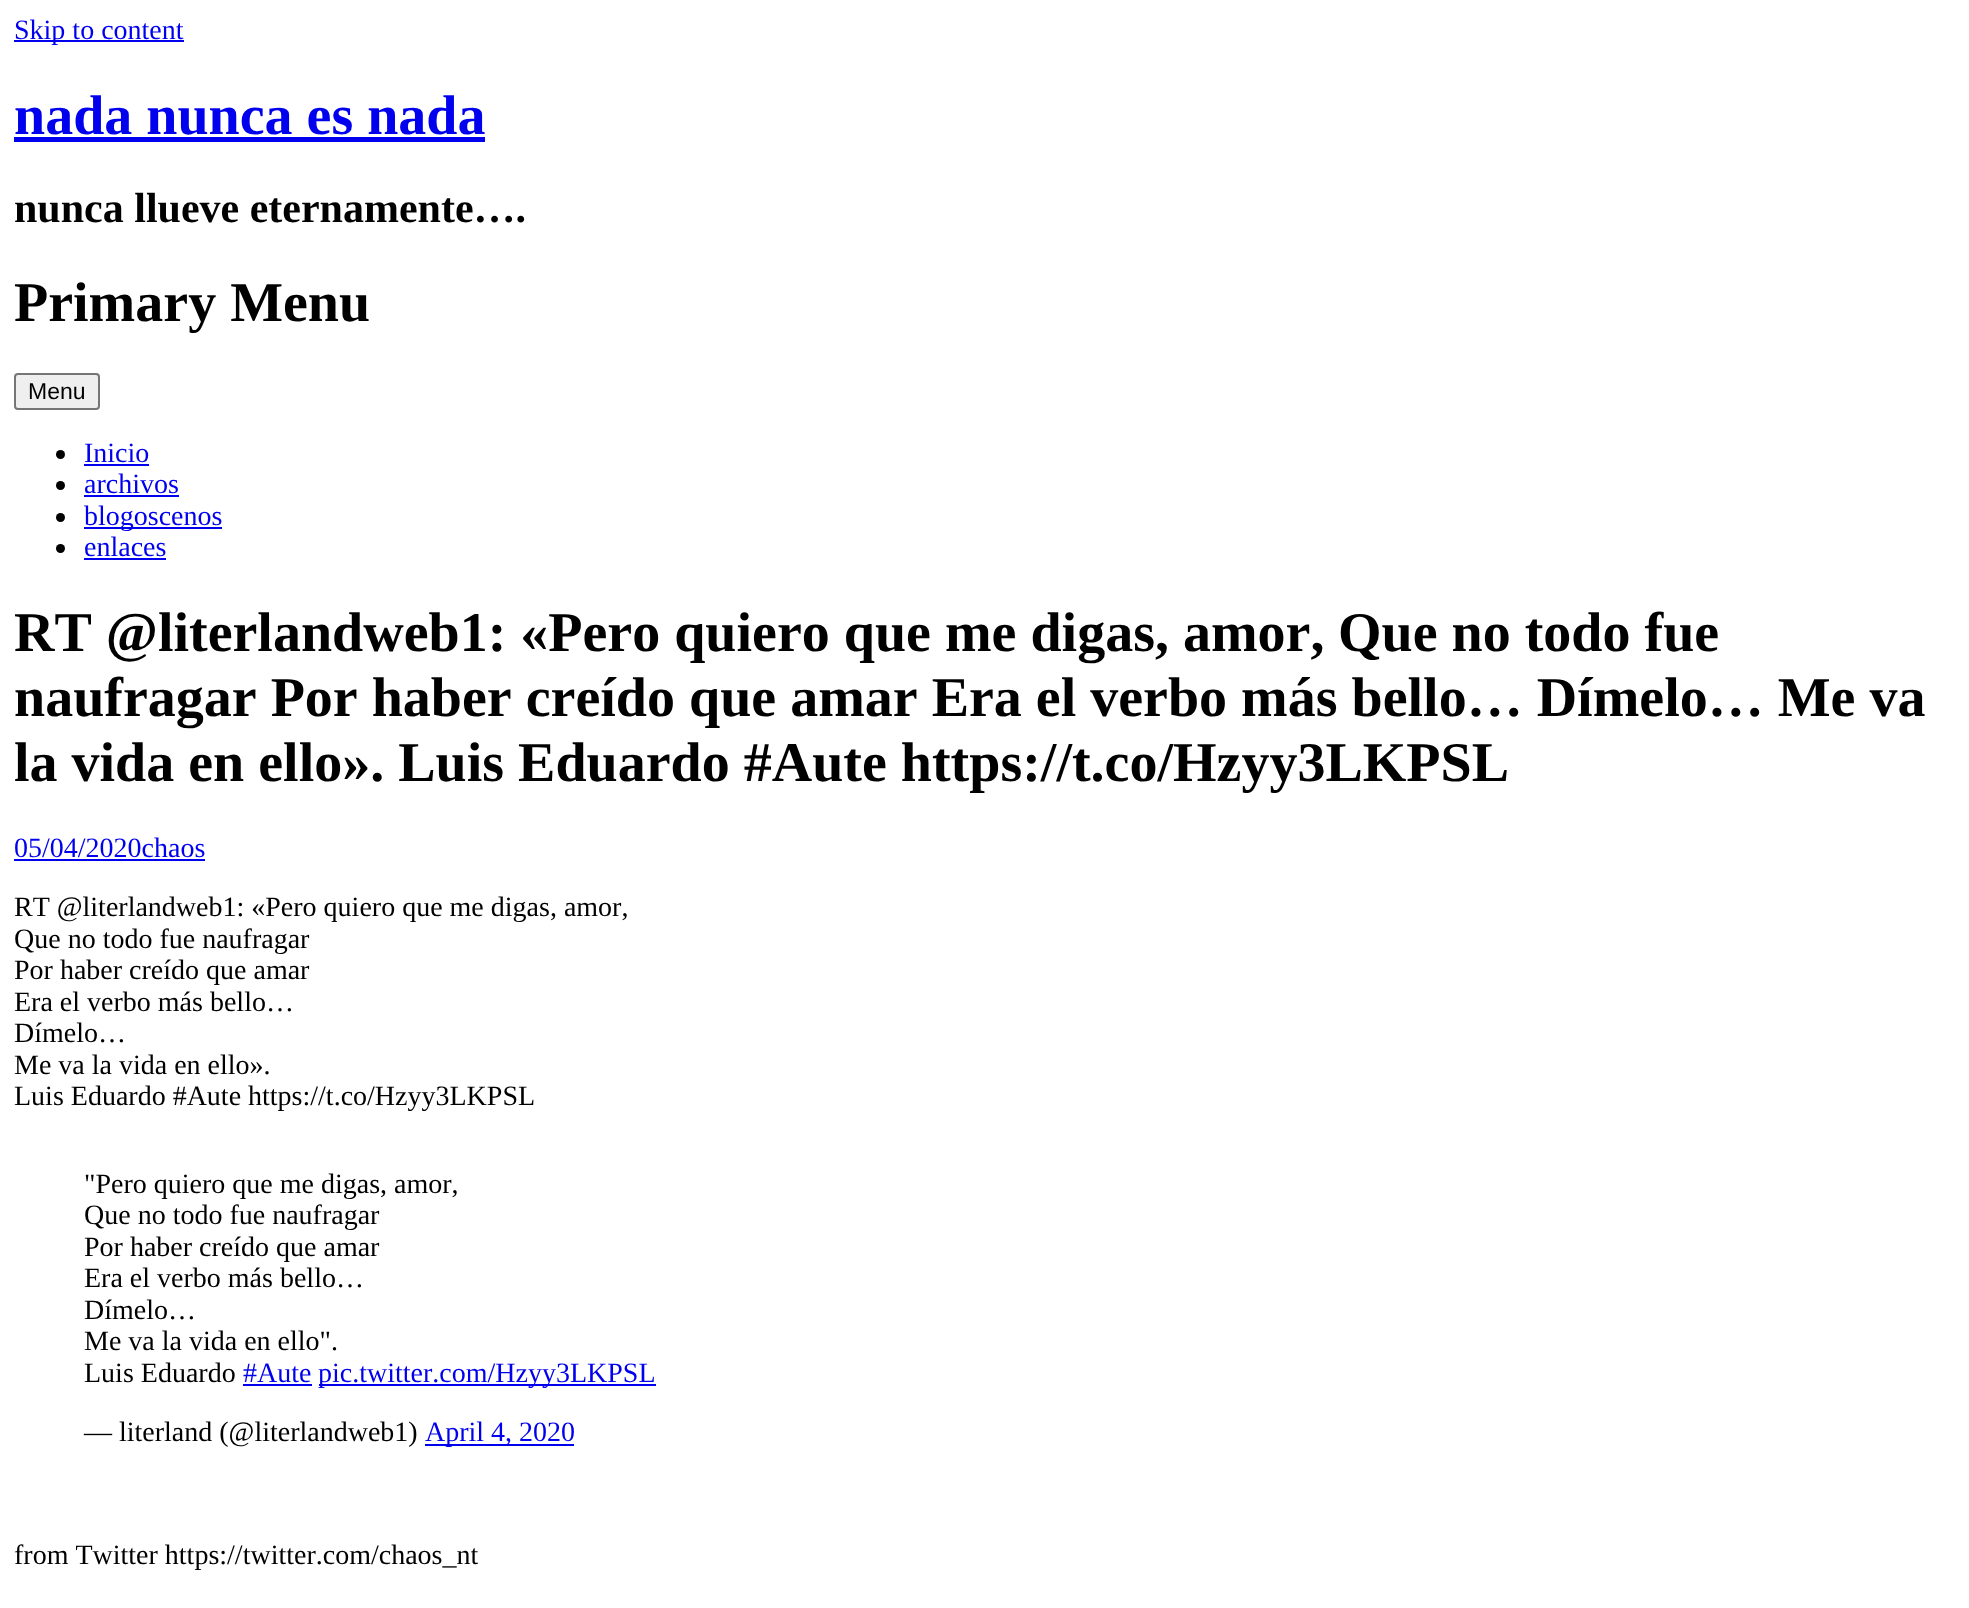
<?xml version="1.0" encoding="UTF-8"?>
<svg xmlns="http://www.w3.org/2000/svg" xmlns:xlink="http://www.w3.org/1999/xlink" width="1969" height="1608">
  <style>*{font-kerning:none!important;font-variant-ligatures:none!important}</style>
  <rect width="100%" height="100%" fill="#ffffff" />
  <rect x="14" y="40" width="170" height="2" fill="#0000ee" />
  <rect x="14" y="137" width="471" height="5" fill="#0000ee" />
  <rect x="15" y="374" width="84" height="35" rx="3" fill="#efefef" stroke="#767676" stroke-width="2" />
  <circle cx="60.5" cy="454.5" r="4.5" fill="#000000" />
  <rect x="84" y="464" width="65" height="2" fill="#0000ee" />
  <circle cx="60.5" cy="485.5" r="4.5" fill="#000000" />
  <rect x="84" y="495" width="95" height="2" fill="#0000ee" />
  <circle cx="60.5" cy="517.5" r="4.5" fill="#000000" />
  <rect x="84" y="527" width="138" height="2" fill="#0000ee" />
  <circle cx="60.5" cy="548.5" r="4.5" fill="#000000" />
  <rect x="84" y="558" width="82" height="2" fill="#0000ee" />
  <rect x="14" y="859" width="191" height="2" fill="#0000ee" />
  <rect x="243" y="1384" width="69" height="2" fill="#0000ee" />
  <rect x="319" y="1384" width="337" height="2" fill="#0000ee" />
  <rect x="425" y="1444" width="149" height="2" fill="#0000ee" />
  <text x="14" y="39" style="font-family: Liberation Serif; font-size: 28px; fill: #0000ee">Skip to content</text>
  <text x="14" y="134" style="font-family: Liberation Serif; font-size: 56px; font-weight: bold; fill: #0000ee">nada nunca es nada</text>
  <text x="14" y="222" style="font-family: Liberation Serif; font-size: 42px; font-weight: bold; fill: #000000">nunca llueve eternamente….</text>
  <text x="14" y="321" style="font-family: Liberation Serif; font-size: 56px; font-weight: bold; fill: #000000">Primary Menu</text>
  <text x="28" y="399" style="font-family: Liberation Sans; font-size: 23px; fill: #000000">Menu</text>
  <text x="84" y="462" style="font-family: Liberation Serif; font-size: 28px; fill: #0000ee">Inicio</text>
  <text x="84" y="493" style="font-family: Liberation Serif; font-size: 28px; fill: #0000ee">archivos</text>
  <text x="84" y="525" style="font-family: Liberation Serif; font-size: 28px; fill: #0000ee">blogoscenos</text>
  <text x="84" y="556" style="font-family: Liberation Serif; font-size: 28px; fill: #0000ee">enlaces</text>
  <text x="14" y="651" style="font-family: Liberation Serif; font-size: 56px; font-weight: bold; fill: #000000">RT @literlandweb1: «Pero quiero que me digas, amor,</text>
  <text x="1338" y="651" style="font-family: Liberation Serif; font-size: 56px; font-weight: bold; fill: #000000">Que no todo fue</text>
  <text x="14" y="716" style="font-family: Liberation Serif; font-size: 56px; font-weight: bold; fill: #000000">naufragar Por haber creído que amar Era el verbo más bello… Dímelo… Me va</text>
  <text x="14" y="781" style="font-family: Liberation Serif; font-size: 56px; font-weight: bold; fill: #000000">la vida en ello». Luis Eduardo #Aute https://t.co/Hzyy3LKPSL</text>
  <text x="14" y="857" style="font-family: Liberation Serif; font-size: 28px; fill: #0000ee">05/04/2020chaos</text>
  <text x="14" y="916" style="font-family: Liberation Serif; font-size: 28px; fill: #000000">RT @literlandweb1: «Pero quiero que me digas, amor,</text>
  <text x="14" y="948" style="font-family: Liberation Serif; font-size: 28px; fill: #000000">Que no todo fue naufragar</text>
  <text x="14" y="979" style="font-family: Liberation Serif; font-size: 28px; fill: #000000">Por haber creído que amar</text>
  <text x="14" y="1011" style="font-family: Liberation Serif; font-size: 28px; fill: #000000">Era el verbo más bello…</text>
  <text x="14" y="1042" style="font-family: Liberation Serif; font-size: 28px; fill: #000000">Dímelo…</text>
  <text x="14" y="1074" style="font-family: Liberation Serif; font-size: 28px; fill: #000000">Me va la vida en ello».</text>
  <text x="14" y="1105" style="font-family: Liberation Serif; font-size: 28px; fill: #000000">Luis Eduardo #Aute https://t.co/Hzyy3LKPSL</text>
  <text x="84" y="1193" style="font-family: Liberation Serif; font-size: 28px; fill: #000000">"Pero quiero que me digas, amor,</text>
  <text x="84" y="1224" style="font-family: Liberation Serif; font-size: 28px; fill: #000000">Que no todo fue naufragar</text>
  <text x="84" y="1256" style="font-family: Liberation Serif; font-size: 28px; fill: #000000">Por haber creído que amar</text>
  <text x="84" y="1287" style="font-family: Liberation Serif; font-size: 28px; fill: #000000">Era el verbo más bello…</text>
  <text x="84" y="1319" style="font-family: Liberation Serif; font-size: 28px; fill: #000000">Dímelo…</text>
  <text x="84" y="1350" style="font-family: Liberation Serif; font-size: 28px; fill: #000000">Me va la vida en ello".</text>
  <text x="84" y="1382" style="font-family: Liberation Serif; font-size: 28px; fill: #000000">Luis Eduardo</text>
  <text x="243" y="1382" style="font-family: Liberation Serif; font-size: 28px; fill: #0000ee">#Aute</text>
  <text x="318" y="1382" style="font-family: Liberation Serif; font-size: 28px; fill: #0000ee">pic.twitter.com/Hzyy3LKPSL</text>
  <text x="84" y="1441" style="font-family: Liberation Serif; font-size: 28px; fill: #000000">— literland (@literlandweb1)</text>
  <text x="425" y="1441" style="font-family: Liberation Serif; font-size: 28px; fill: #0000ee">April 4, 2020</text>
  <text x="14" y="1564" style="font-family: Liberation Serif; font-size: 28px; fill: #000000">from Twitter https://twitter.com/chaos_nt</text>
</svg>
